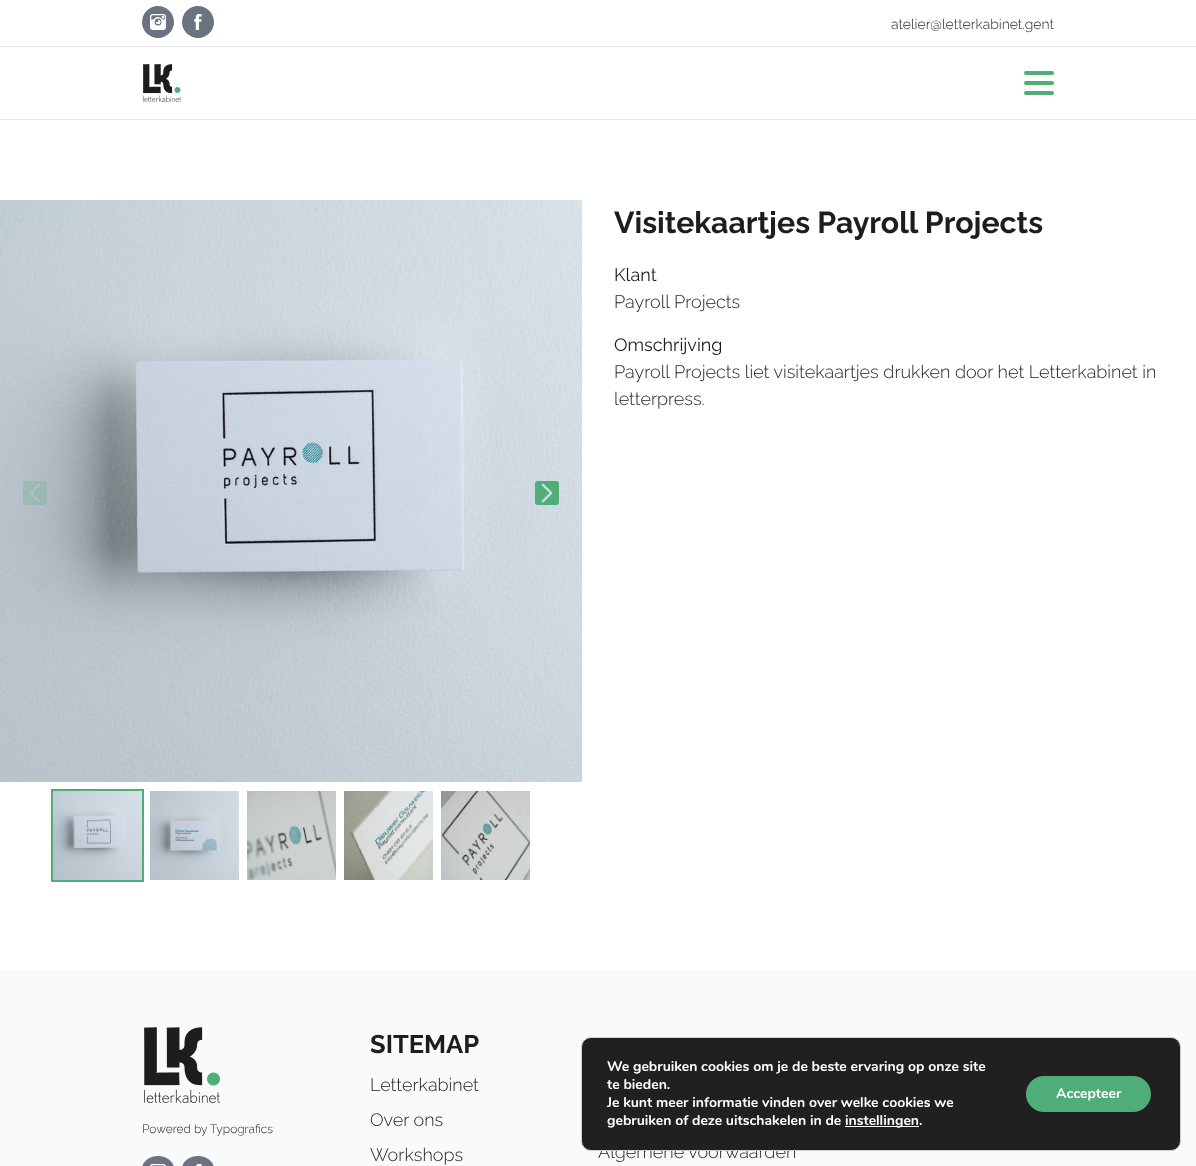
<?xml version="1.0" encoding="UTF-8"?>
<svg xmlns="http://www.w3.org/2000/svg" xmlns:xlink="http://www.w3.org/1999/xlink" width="1196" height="1166">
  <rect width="100%" height="100%" fill="#ffffff" />
  <rect y="46" width="1196" height="1" fill="#e5e7eb" />
  <circle cx="158" cy="22" r="16" fill="#6b7280" />
  <image x="150" y="14" width="16" height="16" xlink:href="image1.png" />
  <circle cx="198" cy="22" r="16" fill="#6b7280" />
  <image x="194" y="14" width="8" height="16" xlink:href="image2.png" />
  <rect y="119" width="1196" height="1" fill="#e5e7eb" />
  <image x="143" y="64" width="38" height="38" xlink:href="image3.png" />
  <rect x="1024" y="71" width="30" height="4" rx="2" fill="#4fae78" />
  <rect x="1024" y="81" width="30" height="4" rx="2" fill="#4fae78" />
  <rect x="1024" y="91" width="30" height="4" rx="2" fill="#4fae78" />
  <image x="0" y="200" width="582" height="582" xlink:href="image4.png" />
  <image x="23" y="481" width="24" height="24" xlink:href="image5.png" />
  <image x="535" y="481" width="24" height="24" xlink:href="image6.png" />
  <rect x="52" y="790" width="91" height="91" fill="none" stroke="#4fae78" stroke-width="2" />
  <image x="53" y="791" width="89" height="89" xlink:href="image7.png" />
  <image x="150" y="791" width="89" height="89" xlink:href="image8.png" />
  <image x="247" y="791" width="89" height="89" xlink:href="image9.png" />
  <image x="344" y="791" width="89" height="89" xlink:href="image10.png" />
  <image x="441" y="791" width="89" height="89" xlink:href="image11.png" />
  <rect y="969" width="1196" height="197" fill="#f9fafb" />
  <image x="144" y="1027" width="76" height="76" xlink:href="image12.png" />
  <rect x="142" y="1156" width="32" height="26" rx="16" fill="#6b7280" />
  <image x="150" y="1164" width="16" height="2" xlink:href="image13.png" />
  <rect x="182" y="1156" width="32" height="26" rx="16" fill="#6b7280" />
  <image x="196" y="1164" width="6" height="2" xlink:href="image14.png" />
  <text x="891" y="29" style="font-family: Raleway; font-size: 14px; font-weight: 100; fill: #1d1d1b">atelier@letterkabinet.gent</text>
  <text x="614" y="233" style="font-family: 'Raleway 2'; font-size: 30.25px; font-weight: 100; fill: #1d1d1b">Visitekaartjes Payroll Projects</text>
  <text x="614" y="281" style="font-family: 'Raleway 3'; font-size: 18px; font-weight: 100; fill: #1d1d1b">Klant</text>
  <text x="614" y="308" style="font-family: Raleway; font-size: 18px; font-weight: 100; fill: #1d1d1b">Payroll Projects</text>
  <text x="614" y="351" style="font-family: 'Raleway 3'; font-size: 18px; font-weight: 100; fill: #1d1d1b">Omschrijving</text>
  <text x="614" y="378" style="font-family: Raleway; font-size: 18px; font-weight: 100; fill: #1d1d1b">Payroll Projects liet visitekaartjes drukken door het Letterkabinet in</text>
  <text x="614" y="405" style="font-family: Raleway; font-size: 18px; font-weight: 100; fill: #1d1d1b">letterpress.</text>
  <text x="142" y="1133" style="font-family: Raleway; font-size: 12px; font-weight: 100; fill: #1d1d1b">Powered by Typografics</text>
  <text x="370" y="1053" style="font-family: 'Raleway 2'; font-size: 25.5px; font-weight: 100; fill: #1d1d1b">SITEMAP</text>
  <text x="370" y="1091" style="font-family: Raleway; font-size: 18px; font-weight: 100; fill: #1d1d1b">Letterkabinet</text>
  <text x="370" y="1126" style="font-family: Raleway; font-size: 18px; font-weight: 100; fill: #1d1d1b">Over ons</text>
  <text x="370" y="1161" style="font-family: Raleway; font-size: 18px; font-weight: 100; fill: #1d1d1b">Workshops</text>
  <text x="598" y="1158" style="font-family: Raleway; font-size: 18px; font-weight: 100; fill: #1d1d1b">Algemene voorwaarden</text>
  <rect x="581.5" y="1037.5" width="599" height="113" rx="9.5" fill="#202020" stroke="#d3ced2" />
  <text x="607" y="1071" style="font-family: Nunito; font-size: 14px; font-weight: bold; fill: #ffffff">We gebruiken cookies om je de beste ervaring op onze site</text>
  <text x="607" y="1089" style="font-family: Nunito; font-size: 14px; font-weight: bold; fill: #ffffff">te bieden.</text>
  <text x="607" y="1107" style="font-family: Nunito; font-size: 14px; font-weight: bold; fill: #ffffff">Je kunt meer informatie vinden over welke cookies we</text>
  <text x="607" y="1125" style="font-family: Nunito; font-size: 14px; font-weight: bold; fill: #ffffff">gebruiken of deze uitschakelen in de</text>
  <rect x="845" y="1126" width="74" height="1" fill="#ffffff" />
  <text x="845" y="1125" style="font-family: Nunito; font-size: 14px; font-weight: bold; fill: #ffffff">instellingen.</text>
  <rect x="1026" y="1076" width="125" height="36" rx="18" fill="#4fae78" />
  <text x="1056" y="1098" style="font-family: Nunito; font-size: 14px; font-weight: bold; fill: #ffffff">Accepteer</text>
</svg>
